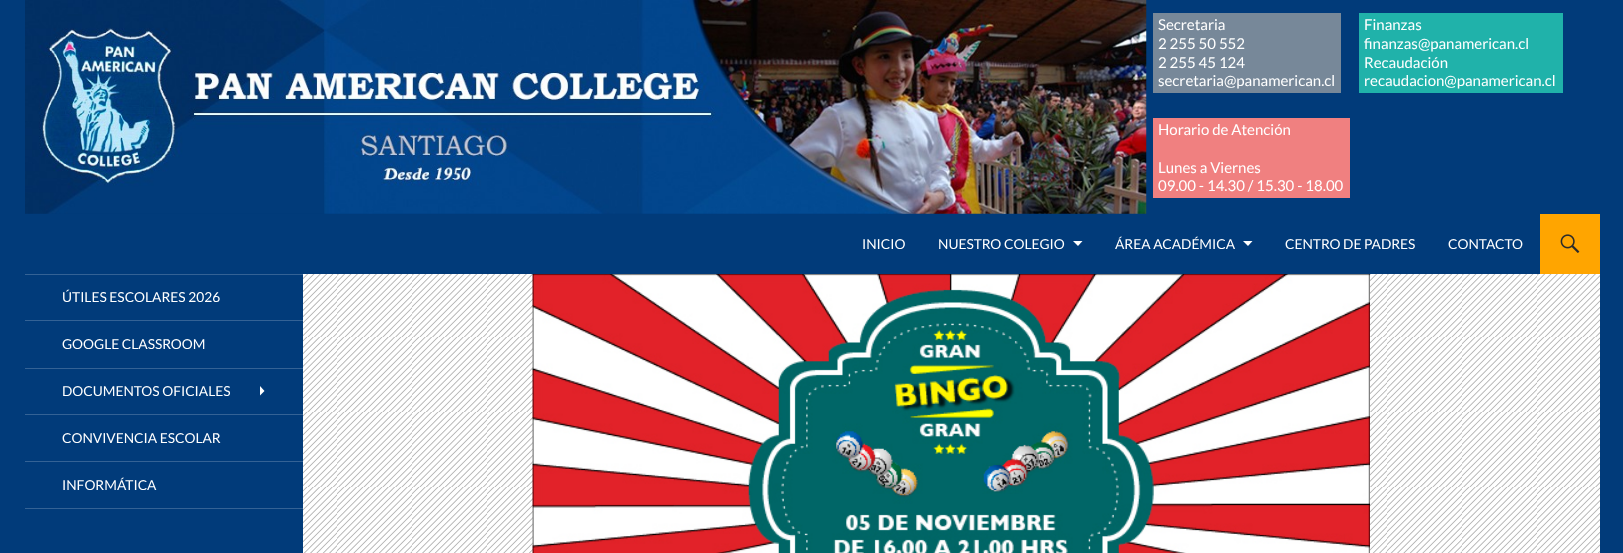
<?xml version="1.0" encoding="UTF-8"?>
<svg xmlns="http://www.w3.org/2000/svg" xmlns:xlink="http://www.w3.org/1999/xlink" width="1623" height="553">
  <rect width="100%" height="100%" fill="#013b7a" />
  <image x="25" y="0" width="1122" height="214" xlink:href="image1.png" />
  <rect x="1153" y="13" width="188" height="80" fill="#778899" />
  <rect x="1359" y="13" width="204" height="80" fill="#20b2aa" />
  <rect x="1153" y="118" width="197" height="80" fill="#f08080" />
  <path d="M 1073 241 l 5 5 l 4.5 -5 z" fill="#ffffff" />
  <path d="M 1243 241 l 5 5 l 4.5 -5 z" fill="#ffffff" />
  <rect x="1540" y="214" width="60" height="60" fill="#ffa500" />
  <image x="1560" y="234" width="20" height="19" xlink:href="image2.png" />
  <rect x="25" y="508" width="278" height="1" fill="#346295" />
  <rect x="25" y="274" width="278" height="1" fill="#346295" />
  <rect x="25" y="320" width="278" height="1" fill="#346295" />
  <rect x="25" y="368" width="278" height="1" fill="#346295" />
  <path d="M 260 395.5 l 4.5 -4.5 l -4.5 -5 z" fill="#ffffff" />
  <rect x="25" y="414" width="278" height="1" fill="#346295" />
  <rect x="25" y="461" width="278" height="1" fill="#346295" />
  <rect x="303" y="274" width="1297" height="279" fill="#b2b2b2" />
  <image x="303" y="274" width="1297" height="279" xlink:href="image3.png" />
  <image x="532" y="274" width="838" height="279" xlink:href="image4.png" />
  <text x="1158" y="30" style="font-family: Lato; font-size: 15px; fill: #ffffff">Secretaria</text>
  <text x="1158" y="49" style="font-family: Lato; font-size: 15px; fill: #ffffff">2 255 50 552</text>
  <text x="1158" y="68" style="font-family: Lato; font-size: 15px; fill: #ffffff">2 255 45 124</text>
  <text x="1158" y="86" style="font-family: Lato; font-size: 15px; fill: #ffffff">secretaria@panamerican.cl</text>
  <text x="1364" y="30" style="font-family: Lato; font-size: 15px; fill: #ffffff">Finanzas</text>
  <text x="1364" y="49" style="font-family: Lato; font-size: 15px; fill: #ffffff">finanzas@panamerican.cl</text>
  <text x="1364" y="68" style="font-family: Lato; font-size: 15px; fill: #ffffff">Recaudación</text>
  <text x="1364" y="86" style="font-family: Lato; font-size: 15px; fill: #ffffff">recaudacion@panamerican.cl</text>
  <text x="1158" y="135" style="font-family: Lato; font-size: 15px; fill: #ffffff">Horario de Atención</text>
  <text x="1158" y="173" style="font-family: Lato; font-size: 15px; fill: #ffffff">Lunes a Viernes</text>
  <text x="1158" y="191" style="font-family: Lato; font-size: 15px; fill: #ffffff">09.00 - 14.30 / 15.30 - 18.00</text>
  <text x="862" y="249" style="font-family: Lato; font-size: 13.75px; fill: #ffffff">INICIO</text>
  <text x="938" y="249" style="font-family: Lato; font-size: 13.75px; fill: #ffffff">NUESTRO COLEGIO</text>
  <text x="1115" y="249" style="font-family: Lato; font-size: 13.75px; fill: #ffffff">ÁREA ACADÉMICA</text>
  <text x="1285" y="249" style="font-family: Lato; font-size: 13.75px; fill: #ffffff">CENTRO DE PADRES</text>
  <text x="1448" y="249" style="font-family: Lato; font-size: 13.75px; fill: #ffffff">CONTACTO</text>
  <text x="62" y="302" style="font-family: Lato; font-size: 13.75px; fill: #ffffff">ÚTILES ESCOLARES 2026</text>
  <text x="62" y="349" style="font-family: Lato; font-size: 13.75px; fill: #ffffff">GOOGLE CLASSROOM</text>
  <text x="62" y="396" style="font-family: Lato; font-size: 13.75px; fill: #ffffff">DOCUMENTOS OFICIALES</text>
  <text x="62" y="443" style="font-family: Lato; font-size: 13.75px; fill: #ffffff">CONVIVENCIA ESCOLAR</text>
  <text x="62" y="490" style="font-family: Lato; font-size: 13.75px; fill: #ffffff">INFORMÁTICA</text>
</svg>
